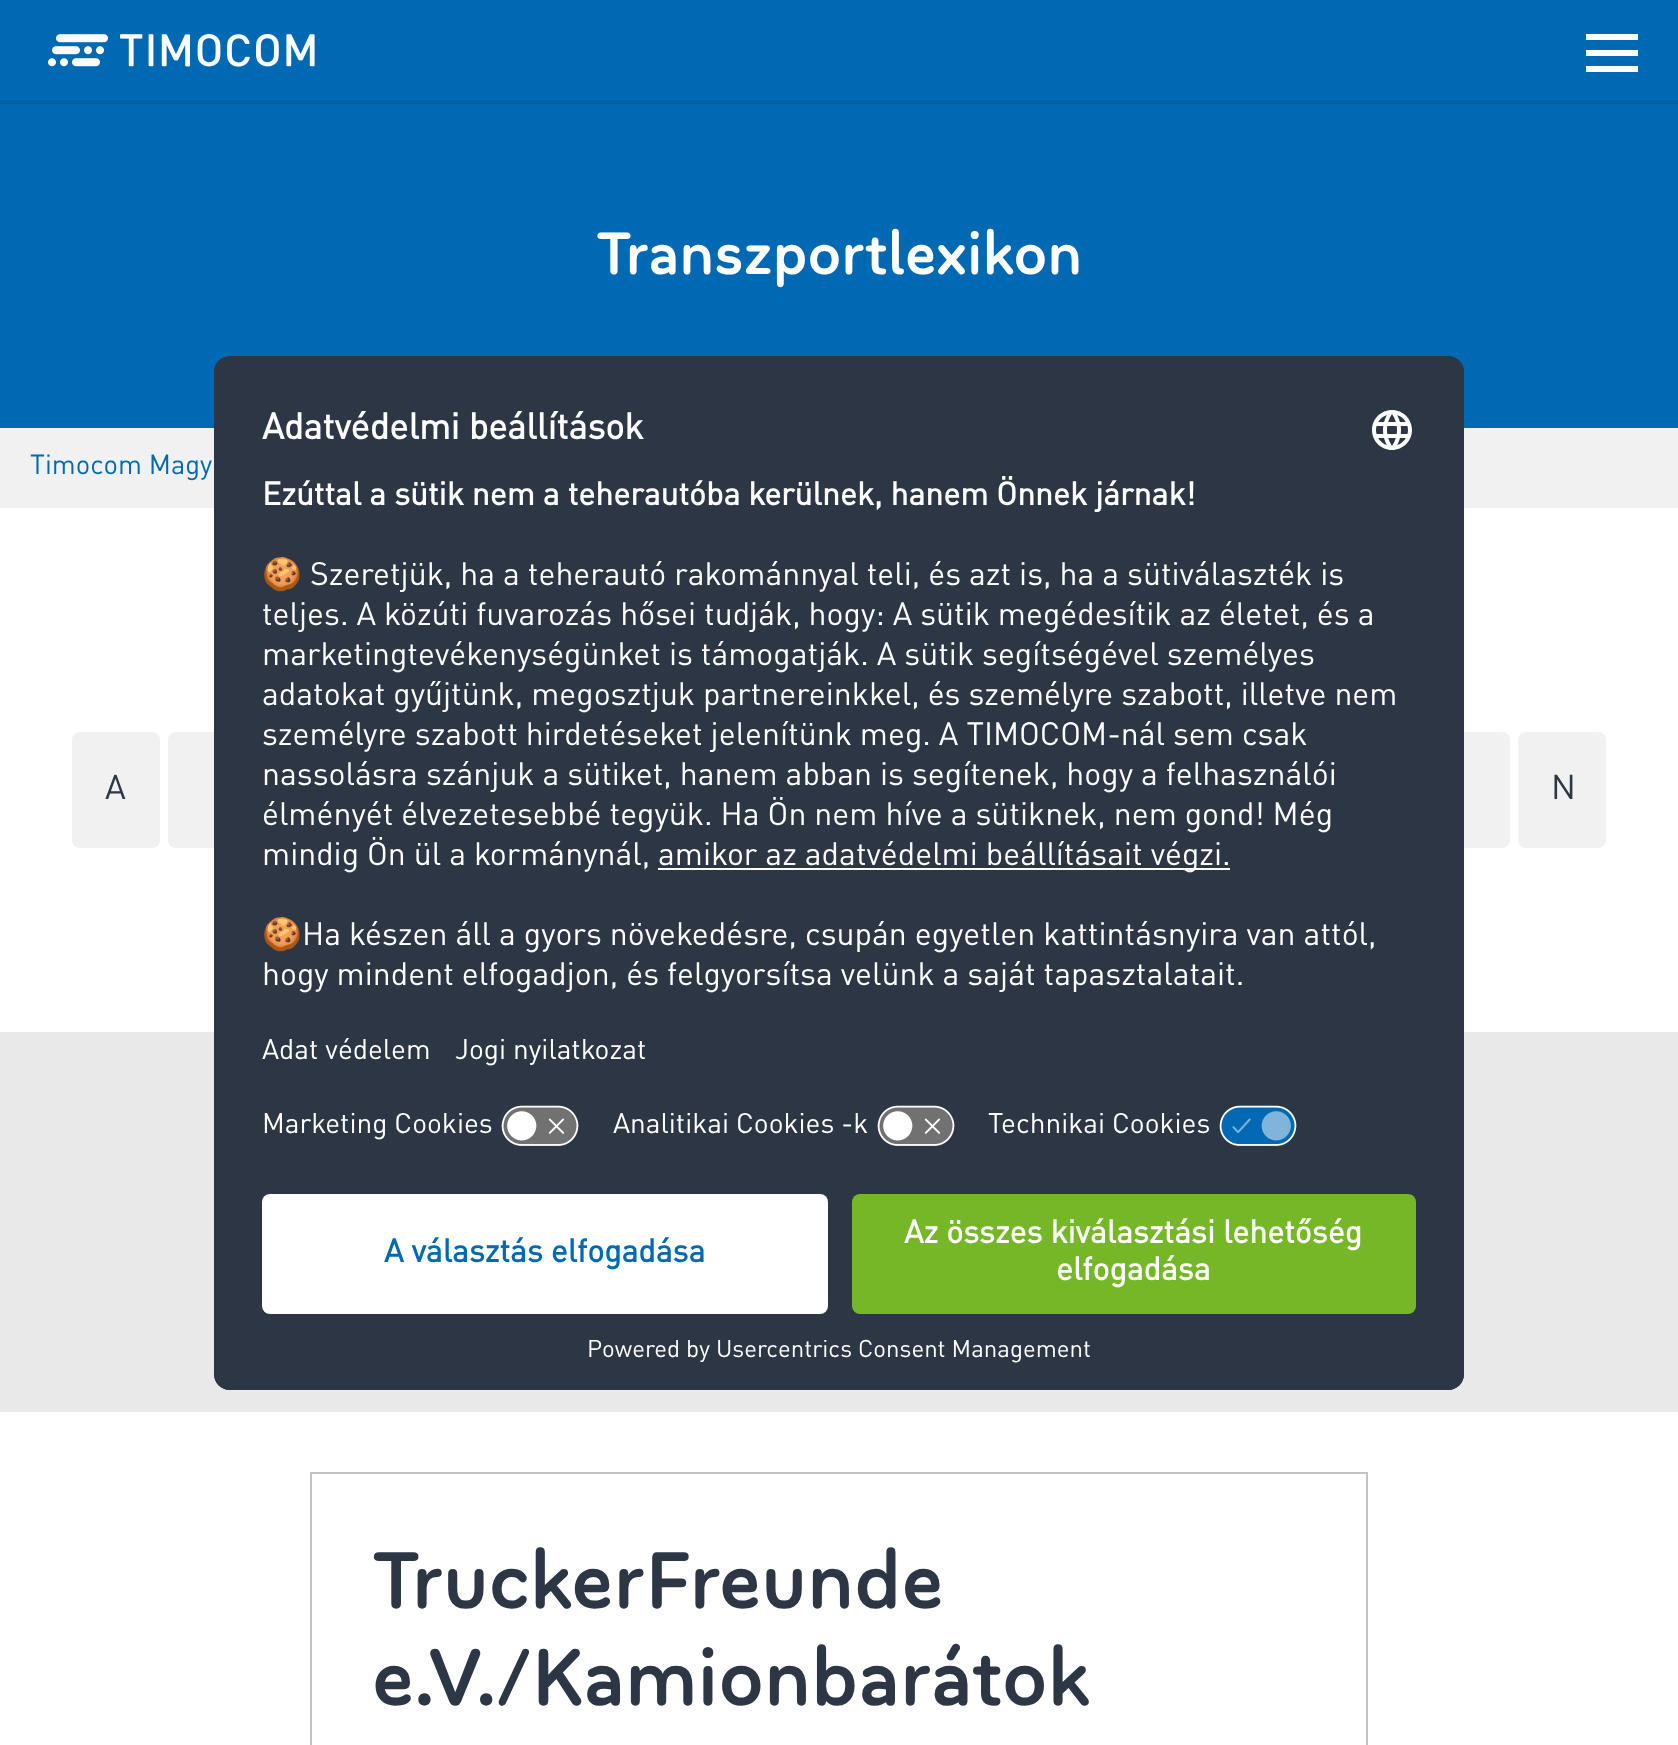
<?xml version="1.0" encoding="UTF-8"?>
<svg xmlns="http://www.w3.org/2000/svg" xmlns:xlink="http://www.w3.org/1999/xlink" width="1678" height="1745">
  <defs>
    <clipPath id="clip1"><rect x="214" y="356" width="1250" height="1034" rx="16" /></clipPath>
    <clipPath id="clip2"><path d="M 230 356 h 1218 c 9 0 16 7 16 16 v 806 h -1250 v -806 c 0 -9 7 -16 16 -16 z" /></clipPath>
  </defs>
  <rect width="100%" height="100%" fill="#0069b4" />
  <rect y="100" width="1678" height="4" fill="#005fa2" />
  <image x="48" y="34" width="267" height="33" xlink:href="image1.png" />
  <rect x="1586" y="34" width="52" height="6" fill="#ffffff" />
  <rect x="1586" y="50" width="52" height="6" fill="#ffffff" />
  <rect x="1586" y="66" width="52" height="6" fill="#ffffff" />
  <rect y="428" width="1678" height="80" fill="#f1f1f1" />
  <rect y="508" width="1678" height="1237" fill="#ffffff" />
  <rect x="72" y="732" width="88" height="116" rx="8" fill="#f1f1f1" />
  <rect x="168" y="732" width="88" height="116" rx="8" fill="#f1f1f1" />
  <rect x="1422" y="732" width="88" height="116" rx="8" fill="#f1f1f1" />
  <rect x="1518" y="732" width="88" height="116" rx="8" fill="#f1f1f1" />
  <rect y="1032" width="1678" height="380" fill="#e9e9e9" />
  <rect x="311" y="1473" width="1056" height="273" fill="none" stroke="#c3c3c3" stroke-width="2" />
  <rect x="214" y="356" width="1250" height="1034" rx="16" fill="#2c3644" />
  <g clip-path="url(#clip1)">
    <g clip-path="url(#clip2)">
      <rect x="214" y="358" width="1250" height="820" fill="#2c3644" />
      <rect x="214" y="358" width="1250" height="740" fill="#2c3644" />
    </g>
  </g>
  <image x="1372" y="410" width="40" height="40" xlink:href="image2.png" />
  <rect x="658" y="868" width="572" height="2" fill="#ffffff" />
  <image x="501" y="1105" width="78" height="41" xlink:href="image3.png" />
  <image x="877" y="1105" width="78" height="41" xlink:href="image3.png" />
  <image x="1219" y="1105" width="78" height="41" xlink:href="image4.png" />
  <path d="M 214 1178 h 1250 v 196 c 0 9 -7 16 -16 16 h -1218 c -9 0 -16 -7 -16 -16 z" fill="#2c3644" />
  <rect x="262" y="1194" width="566" height="120" rx="8" fill="#ffffff" />
  <rect x="852" y="1194" width="564" height="120" rx="8" fill="#75b727" />
  <text x="596" y="274" style="font-family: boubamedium; font-size: 60px; font-weight: 500; fill: #ffffff">Transzportlexikon</text>
  <text x="30" y="474" style="font-family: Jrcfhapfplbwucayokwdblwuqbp; font-size: 27.25px; fill: #0069b4">Timocom Magy</text>
  <text x="105" y="799" style="font-family: Jrcfhapfplbwucayokwdblwuqbp; font-size: 34px; fill: #2c3644">A</text>
  <text x="1551" y="799" style="font-family: Jrcfhapfplbwucayokwdblwuqbp; font-size: 34px; fill: #2c3644">N</text>
  <text x="372" y="1608" style="font-family: boubamedium; font-size: 80.75px; font-weight: 500; fill: #2c3644">TruckerFreunde</text>
  <text x="372" y="1705" style="font-family: boubamedium; font-size: 80.75px; font-weight: 500; fill: #2c3644">e.V./Kamionbarátok</text>
  <text x="262" y="439" style="font-family: Jrcfhapfplbwucayokwdblwuqbp; font-size: 36px; font-weight: bold; fill: #ffffff">Adatvédelmi beállítások</text>
  <text x="262" y="505" style="font-family: Jrcfhapfplbwucayokwdblwuqbp; font-size: 32px; font-weight: bold; fill: #ffffff">Ezúttal a sütik nem a teherautóba kerülnek, hanem Önnek járnak!</text>
  <text x="262" y="585" style="font-family: Noto Color Emoji; font-size: 32px; fill: #ffffff">🍪</text>
  <text x="310" y="585" style="font-family: Jrcfhapfplbwucayokwdblwuqbp; font-size: 32px; fill: #ffffff">Szeretjük, ha a teherautó rakománnyal teli, és azt is, ha a sütiválaszték is</text>
  <text x="262" y="625" style="font-family: Jrcfhapfplbwucayokwdblwuqbp; font-size: 32px; fill: #ffffff">teljes. A közúti fuvarozás hősei tudják, hogy: A sütik megédesítik az életet, és a</text>
  <text x="262" y="665" style="font-family: Jrcfhapfplbwucayokwdblwuqbp; font-size: 32px; fill: #ffffff">marketingtevékenységünket is támogatják. A sütik segítségével személyes</text>
  <text x="262" y="705" style="font-family: Jrcfhapfplbwucayokwdblwuqbp; font-size: 32px; fill: #ffffff">adatokat gyűjtünk, megosztjuk partnereinkkel, és személyre szabott, illetve nem</text>
  <text x="262" y="745" style="font-family: Jrcfhapfplbwucayokwdblwuqbp; font-size: 32px; fill: #ffffff">személyre szabott hirdetéseket jelenítünk meg. A TIMOCOM-nál sem csak</text>
  <text x="262" y="785" style="font-family: Jrcfhapfplbwucayokwdblwuqbp; font-size: 32px; fill: #ffffff">nassolásra szánjuk a sütiket, hanem abban is segítenek, hogy a felhasználói</text>
  <text x="262" y="825" style="font-family: Jrcfhapfplbwucayokwdblwuqbp; font-size: 32px; fill: #ffffff">élményét élvezetesebbé tegyük. Ha Ön nem híve a sütiknek, nem gond! Még</text>
  <text x="262" y="865" style="font-family: Jrcfhapfplbwucayokwdblwuqbp; font-size: 32px; fill: #ffffff">mindig Ön ül a kormánynál,</text>
  <text x="658" y="865" style="font-family: Jrcfhapfplbwucayokwdblwuqbp; font-size: 32px; fill: #ffffff">amikor az adatvédelmi beállításait végzi.</text>
  <text x="262" y="945" style="font-family: Noto Color Emoji; font-size: 32px; fill: #ffffff">🍪</text>
  <text x="302" y="945" style="font-family: Jrcfhapfplbwucayokwdblwuqbp; font-size: 32px; fill: #ffffff">Ha készen áll a gyors növekedésre, csupán egyetlen kattintásnyira van attól,</text>
  <text x="262" y="985" style="font-family: Jrcfhapfplbwucayokwdblwuqbp; font-size: 32px; fill: #ffffff">hogy mindent elfogadjon, és felgyorsítsa velünk a saját tapasztalatait.</text>
  <text x="262" y="1059" style="font-family: Jrcfhapfplbwucayokwdblwuqbp; font-size: 28px; fill: #ffffff">Adat védelem</text>
  <text x="455" y="1059" style="font-family: Jrcfhapfplbwucayokwdblwuqbp; font-size: 28px; fill: #ffffff">Jogi nyilatkozat</text>
  <text x="262" y="1133" style="font-family: Jrcfhapfplbwucayokwdblwuqbp; font-size: 28px; fill: #ffffff">Marketing Cookies</text>
  <text x="613" y="1133" style="font-family: Jrcfhapfplbwucayokwdblwuqbp; font-size: 28px; fill: #ffffff">Analitikai Cookies -k</text>
  <text x="988" y="1133" style="font-family: Jrcfhapfplbwucayokwdblwuqbp; font-size: 28px; fill: #ffffff">Technikai Cookies</text>
  <text x="384" y="1262" style="font-family: Jrcfhapfplbwucayokwdblwuqbp; font-size: 32px; font-weight: bold; fill: #0069b4">A választás elfogadása</text>
  <text x="904" y="1243" style="font-family: Jrcfhapfplbwucayokwdblwuqbp; font-size: 32px; font-weight: bold; fill: #ffffff">Az összes kiválasztási lehetőség</text>
  <text x="1056" y="1280" style="font-family: Jrcfhapfplbwucayokwdblwuqbp; font-size: 32px; font-weight: bold; fill: #ffffff">elfogadása</text>
  <text x="587" y="1357" style="font-family: Jrcfhapfplbwucayokwdblwuqbp; font-size: 24px; fill: #ffffff">Powered by Usercentrics Consent Management</text>
</svg>
